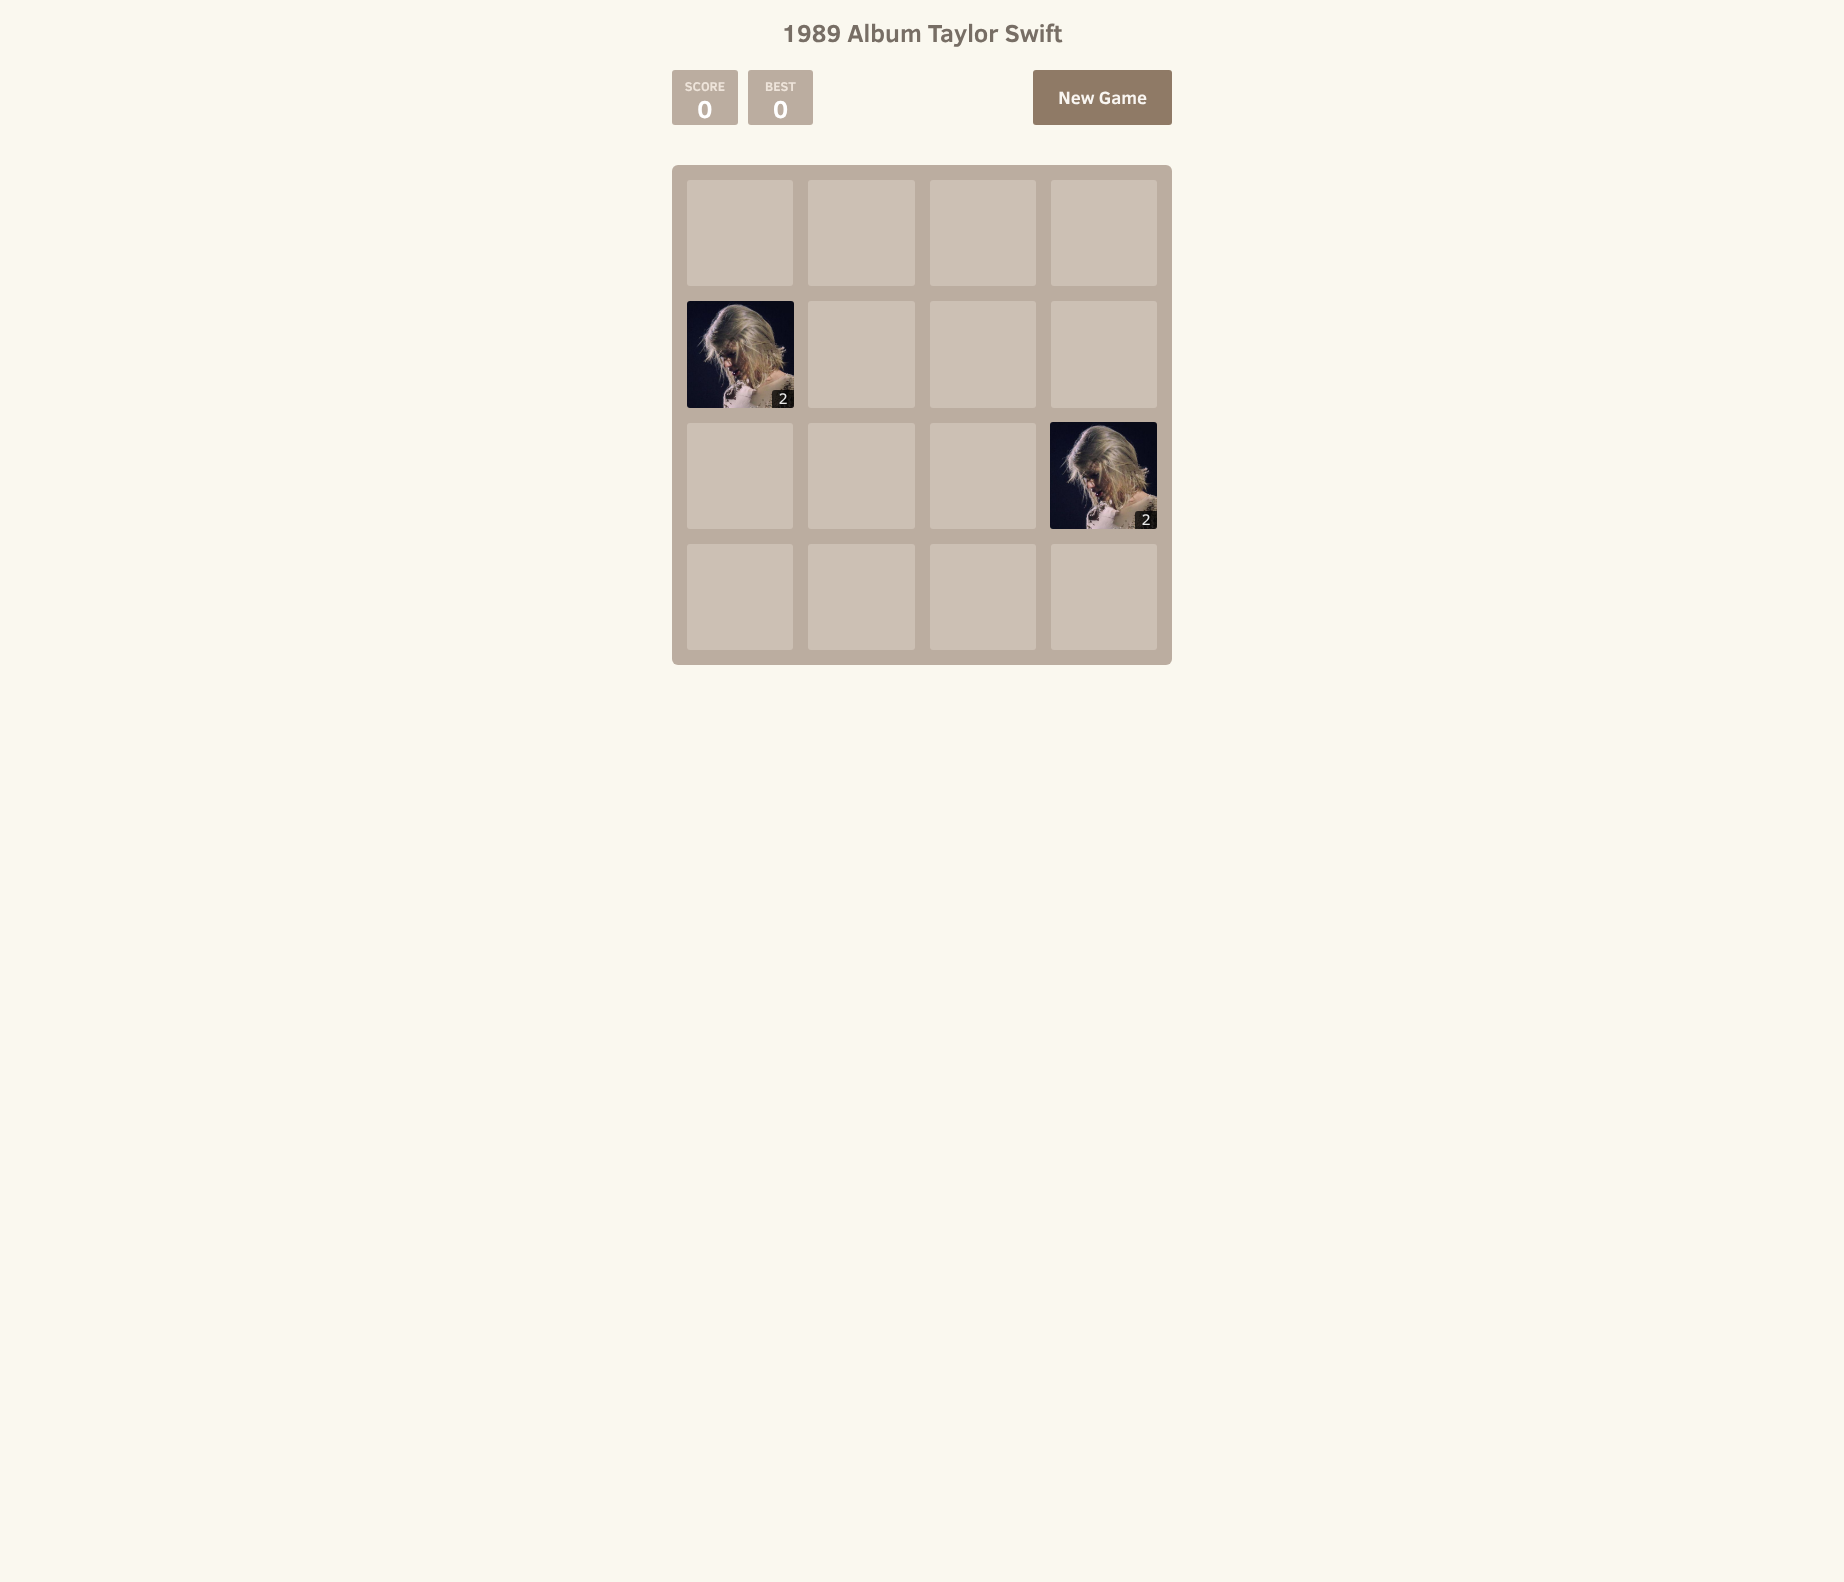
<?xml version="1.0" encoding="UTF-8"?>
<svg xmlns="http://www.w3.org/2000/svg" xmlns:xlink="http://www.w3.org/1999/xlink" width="1844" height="1582">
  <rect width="100%" height="100%" fill="#ffffff" />
  <image x="0" y="0" width="1844" height="1582" xlink:href="image1.png" />
</svg>
